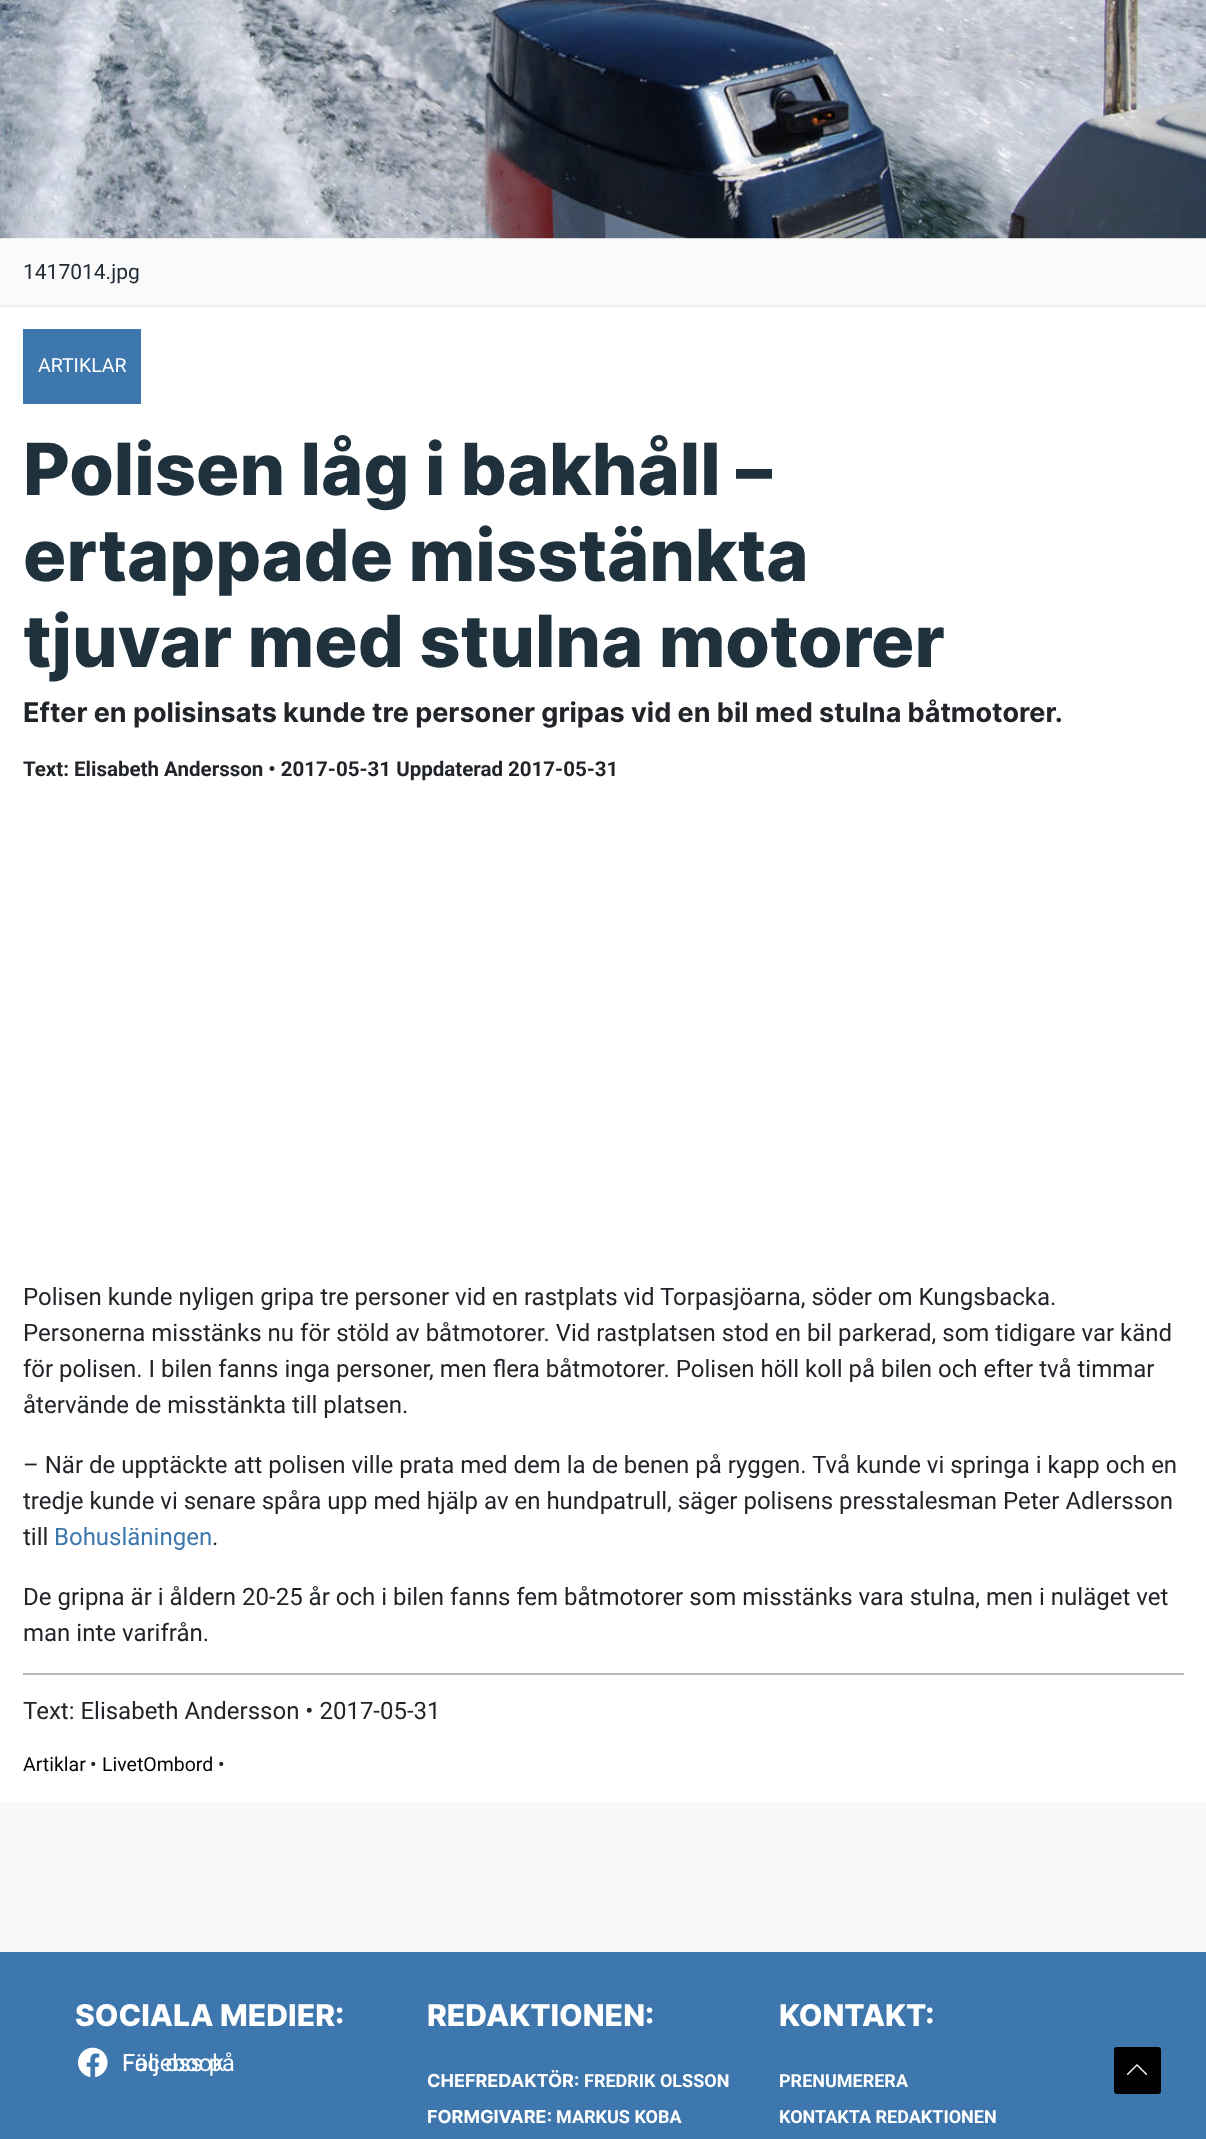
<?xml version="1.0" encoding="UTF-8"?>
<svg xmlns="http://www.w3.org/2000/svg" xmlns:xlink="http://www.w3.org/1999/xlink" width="1206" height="2139">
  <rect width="100%" height="100%" fill="#f8f9fa" />
  <rect y="238" width="1206" height="1564" fill="#ffffff" />
  <image x="0" y="0" width="1206" height="239" xlink:href="image1.png" />
  <rect y="239" width="1206" height="66" fill="#fafafa" />
  <rect y="305" width="1206" height="2" fill="#efefef" />
  <rect x="23" y="329" width="118" height="75" fill="#3d77ae" />
  <rect x="23" y="1673" width="1161" height="2" fill="#b8b8b8" />
  <rect y="1952" width="1206" height="187" fill="#3d77ae" />
  <image x="77" y="2047" width="31" height="31" xlink:href="image2.png" />
  <path d="M 1158 2094 h -41 c -2 0 -3 -1 -3 -3 v -41 c 0 -2 1 -3 3 -3 h 41 c 2 0 3 1 3 3 v 41 c 0 2 -1 3 -3 3 z" fill="#000000" />
  <image x="1126" y="2064" width="22" height="11" xlink:href="image3.png" />
  <text x="23" y="279" style="font-family: Roboto; font-size: 21px; fill: #212b36">1417014.jpg</text>
  <text x="38" y="372" style="font-family: Roboto; font-size: 19.5px; fill: #ffffff">ARTIKLAR</text>
  <text x="23" y="495" style="font-family: Inter; font-size: 72px; font-weight: 800; fill: #1f313d">Polisen låg i bakhåll –</text>
  <text x="23" y="581" style="font-family: Inter; font-size: 72px; font-weight: 800; fill: #1f313d">ertappade misstänkta</text>
  <text x="23" y="667" style="font-family: Inter; font-size: 72px; font-weight: 800; fill: #1f313d">tjuvar med stulna motorer</text>
  <text x="23" y="722" style="font-family: Inter; font-size: 27px; font-weight: bold; fill: #212529">Efter en polisinsats kunde tre personer gripas vid en bil med stulna båtmotorer.</text>
  <text x="23" y="776" style="font-family: Roboto; font-size: 20.5px; font-weight: bold; fill: #212529">Text: Elisabeth Andersson • 2017-05-31 Uppdaterad 2017-05-31</text>
  <text x="23" y="1305" style="font-family: Roboto; font-size: 24px; fill: #212529">Polisen kunde nyligen gripa tre personer vid en rastplats vid Torpasjöarna, söder om Kungsbacka.</text>
  <text x="23" y="1341" style="font-family: Roboto; font-size: 24px; fill: #212529">Personerna misstänks nu för stöld av båtmotorer. Vid rastplatsen stod en bil parkerad, som tidigare var känd</text>
  <text x="23" y="1377" style="font-family: Roboto; font-size: 24px; fill: #212529">för polisen. I bilen fanns inga personer, men flera båtmotorer. Polisen höll koll på bilen och efter två timmar</text>
  <text x="23" y="1413" style="font-family: Roboto; font-size: 24px; fill: #212529">återvände de misstänkta till platsen.</text>
  <text x="23" y="1473" style="font-family: Roboto; font-size: 24px; fill: #212529">– När de upptäckte att polisen ville prata med dem la de benen på ryggen. Två kunde vi springa i kapp och en</text>
  <text x="23" y="1509" style="font-family: Roboto; font-size: 24px; fill: #212529">tredje kunde vi senare spåra upp med hjälp av en hundpatrull, säger polisens presstalesman Peter Adlersson</text>
  <text x="23" y="1545" style="font-family: Roboto; font-size: 24px; fill: #212529">till</text>
  <text x="54" y="1545" style="font-family: Roboto; font-size: 24px; fill: #3d77ae">Bohusläningen</text>
  <text x="212" y="1545" style="font-family: Roboto; font-size: 24px; fill: #212529">.</text>
  <text x="23" y="1605" style="font-family: Roboto; font-size: 24px; fill: #212529">De gripna är i åldern 20-25 år och i bilen fanns fem båtmotorer som misstänks vara stulna, men i nuläget vet</text>
  <text x="23" y="1641" style="font-family: Roboto; font-size: 24px; fill: #212529">man inte varifrån.</text>
  <text x="23" y="1719" style="font-family: Roboto; font-size: 24px; fill: #212529">Text: Elisabeth Andersson • 2017-05-31</text>
  <text x="23" y="1771" style="font-family: Roboto; font-size: 19.5px; fill: #000000">Artiklar</text>
  <text x="90" y="1771" style="font-family: Roboto; font-size: 19.5px; fill: #212529">•</text>
  <text x="102" y="1771" style="font-family: Roboto; font-size: 19.5px; fill: #000000">LivetOmbord</text>
  <text x="218" y="1771" style="font-family: Roboto; font-size: 19.5px; fill: #212529">•</text>
  <text x="75" y="2026" style="font-family: Inter; font-size: 30px; font-weight: 800; fill: #ffffff">SOCIALA MEDIER:</text>
  <text x="122" y="2071" style="font-family: Roboto; font-size: 23.5px; fill: #ffffff">Följ oss på</text>
  <text x="122" y="2071" style="font-family: Roboto; font-size: 23.5px; fill: #ffffff">Facebook</text>
  <text x="427" y="2026" style="font-family: Inter; font-size: 30px; font-weight: 800; fill: #ffffff">REDAKTIONEN:</text>
  <text x="427" y="2087" style="font-family: Inter; font-size: 18px; font-weight: bold; fill: #ffffff">CHEFREDAKTÖR:</text>
  <text x="584" y="2087" style="font-family: Roboto; font-size: 18px; font-weight: bold; fill: #ffffff">FREDRIK OLSSON</text>
  <text x="427" y="2123" style="font-family: Inter; font-size: 18px; font-weight: bold; fill: #ffffff">FORMGIVARE:</text>
  <text x="556" y="2123" style="font-family: Roboto; font-size: 18px; font-weight: bold; fill: #ffffff">MARKUS KOBA</text>
  <text x="779" y="2026" style="font-family: Inter; font-size: 30px; font-weight: 800; fill: #ffffff">KONTAKT:</text>
  <text x="779" y="2087" style="font-family: Roboto; font-size: 18px; font-weight: bold; fill: #ffffff">PRENUMERERA</text>
  <text x="779" y="2123" style="font-family: Roboto; font-size: 18px; font-weight: bold; fill: #ffffff">KONTAKTA REDAKTIONEN</text>
</svg>
